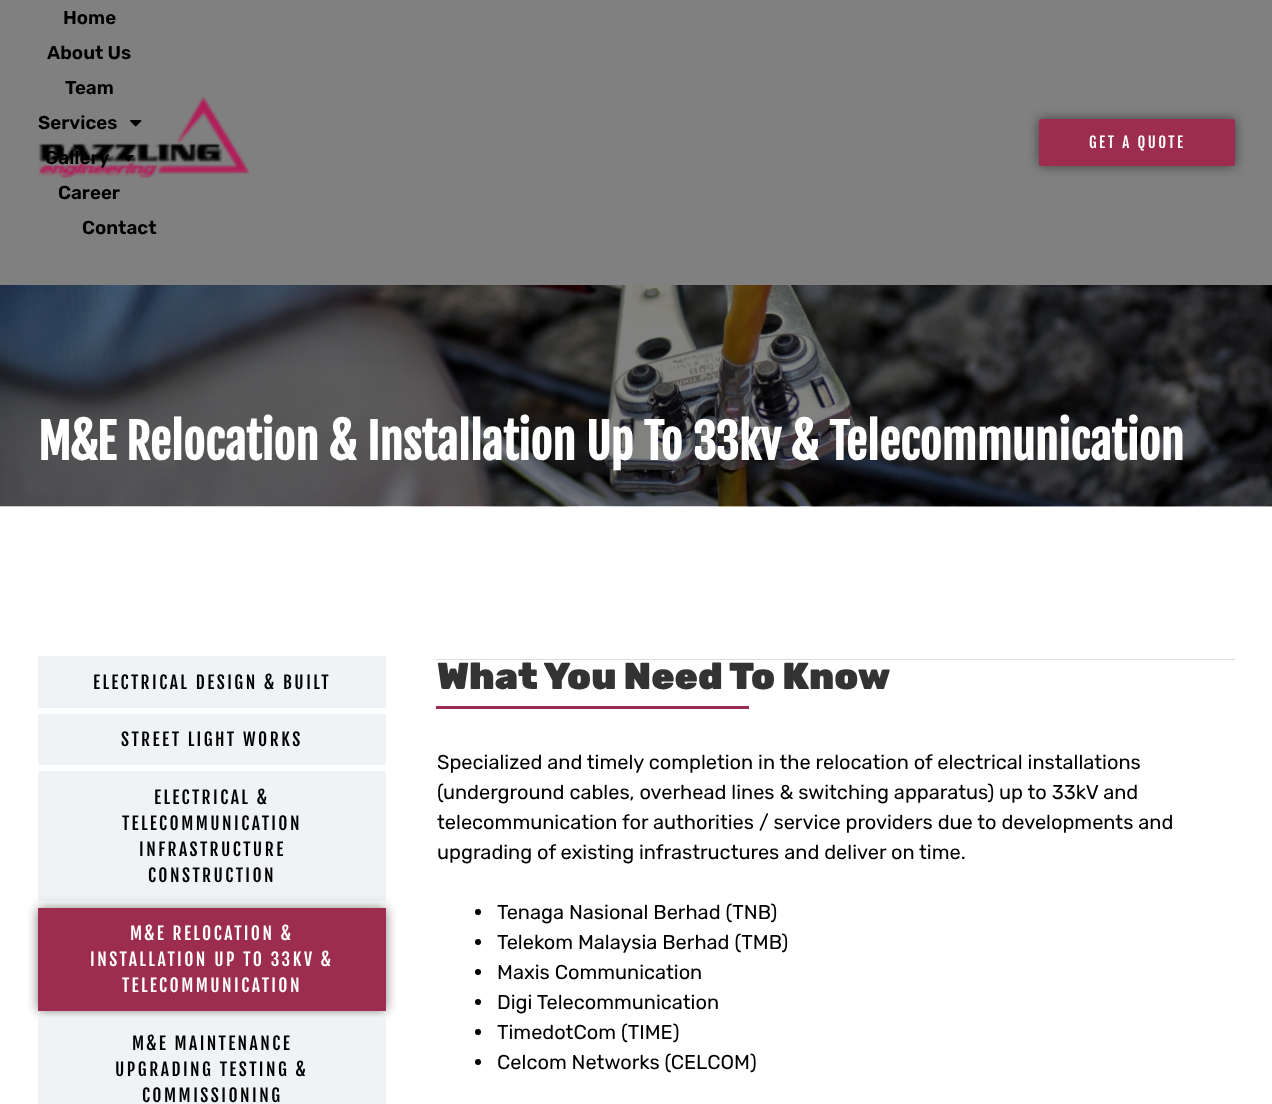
<?xml version="1.0" encoding="UTF-8"?>
<svg xmlns="http://www.w3.org/2000/svg" xmlns:xlink="http://www.w3.org/1999/xlink" width="1272" height="1104">
  <rect width="100%" height="100%" fill="#ffffff" />
  <rect width="1272" height="285" fill="#808080" />
  <image x="38" y="97" width="212" height="82" xlink:href="image3.png" />
  <image x="130" y="120" width="12" height="7" xlink:href="image1.png" />
  <image x="125" y="155" width="9" height="7" xlink:href="image2.png" />
  <rect x="1039" y="119" width="196" height="47" rx="2.5" fill="#000000" fill-opacity="0.5" filter="blur(6px)" />
  <rect x="1039" y="119" width="196" height="47" rx="2.5" fill="#9d2d4f" />
  <image x="0" y="285" width="1272" height="222" xlink:href="image4.png" />
  <rect x="38" y="656" width="348" height="52" fill="#eff3f6" />
  <rect x="38" y="714" width="348" height="51" fill="#eff3f6" />
  <rect x="38" y="771" width="348" height="130" fill="#eff3f6" />
  <rect x="38" y="908" width="348" height="103" fill="#000000" fill-opacity="0.5" filter="blur(6px)" />
  <rect x="38" y="908" width="348" height="103" fill="#9d2d4f" />
  <rect x="38" y="1018" width="348" height="86" fill="#eff3f6" />
  <rect x="436" y="659" width="799" height="1" fill="#dcdde1" />
  <rect x="436" y="706" width="313" height="3" fill="#9d2d4f" />
  <circle cx="478" cy="912" r="3" fill="#000000" />
  <circle cx="478" cy="942" r="3" fill="#000000" />
  <circle cx="478" cy="972" r="3" fill="#000000" />
  <circle cx="478" cy="1002" r="3" fill="#000000" />
  <circle cx="478" cy="1032" r="3" fill="#000000" />
  <circle cx="478" cy="1062" r="3" fill="#000000" />
  <text x="63" y="24" style="font-family: Rubik; font-size: 18.75px; font-weight: 600; fill: #000000">Home</text>
  <text x="47" y="59" style="font-family: Rubik; font-size: 18.75px; font-weight: 600; fill: #000000">About Us</text>
  <text x="65" y="94" style="font-family: Rubik; font-size: 18.75px; font-weight: 600; fill: #000000">Team</text>
  <text x="38" y="129" style="font-family: Rubik; font-size: 18.75px; font-weight: 600; fill: #000000">Services</text>
  <text x="45" y="164" style="font-family: Rubik; font-size: 18.75px; font-weight: 600; fill: #000000">Gallery</text>
  <text x="58" y="199" style="font-family: Rubik; font-size: 18.75px; font-weight: 600; fill: #000000">Career</text>
  <text x="82" y="234" style="font-family: Rubik; font-size: 18.75px; font-weight: 600; fill: #000000">Contact</text>
  <text x="1089" y="148" style="font-family: Fjalla One; font-size: 15px; letter-spacing: 2.5px; fill: #ffffff">GET A QUOTE</text>
  <text x="38" y="460" style="font-family: Fjalla One; font-size: 47.5px; font-weight: bold; fill: #ffffff">M&amp;E Relocation &amp; Installation Up To 33kv &amp; Telecommunication</text>
  <text x="93" y="689" style="font-family: Fjalla One; font-size: 17.5px; letter-spacing: 2.5px; fill: #000000">ELECTRICAL DESIGN &amp; BUILT</text>
  <text x="121" y="746" style="font-family: Fjalla One; font-size: 17.5px; letter-spacing: 2.5px; fill: #000000">STREET LIGHT WORKS</text>
  <text x="154" y="804" style="font-family: Fjalla One; font-size: 17.5px; letter-spacing: 2.5px; fill: #000000">ELECTRICAL &amp;</text>
  <text x="122" y="830" style="font-family: Fjalla One; font-size: 17.5px; letter-spacing: 2.5px; fill: #000000">TELECOMMUNICATION</text>
  <text x="139" y="856" style="font-family: Fjalla One; font-size: 17.5px; letter-spacing: 2.5px; fill: #000000">INFRASTRUCTURE</text>
  <text x="148" y="882" style="font-family: Fjalla One; font-size: 17.5px; letter-spacing: 2.5px; fill: #000000">CONSTRUCTION</text>
  <text x="130" y="940" style="font-family: Fjalla One; font-size: 17.5px; letter-spacing: 2.5px; fill: #ffffff">M&amp;E RELOCATION &amp;</text>
  <text x="90" y="966" style="font-family: Fjalla One; font-size: 17.5px; letter-spacing: 2.5px; fill: #ffffff">INSTALLATION UP TO 33KV &amp;</text>
  <text x="122" y="992" style="font-family: Fjalla One; font-size: 17.5px; letter-spacing: 2.5px; fill: #ffffff">TELECOMMUNICATION</text>
  <text x="132" y="1050" style="font-family: Fjalla One; font-size: 17.5px; letter-spacing: 2.5px; fill: #000000">M&amp;E MAINTENANCE</text>
  <text x="115" y="1076" style="font-family: Fjalla One; font-size: 17.5px; letter-spacing: 2.5px; fill: #000000">UPGRADING TESTING &amp;</text>
  <text x="142" y="1102" style="font-family: Fjalla One; font-size: 17.5px; letter-spacing: 2.5px; fill: #000000">COMMISSIONING</text>
  <text x="437" y="689" style="font-family: Rubik; font-size: 37.5px; font-weight: 900; fill: #333333">What You Need To Know</text>
  <text x="437" y="769" style="font-family: Rubik; font-size: 20px; fill: #000000">Specialized and timely completion in the relocation of electrical installations</text>
  <text x="437" y="799" style="font-family: Rubik; font-size: 20px; fill: #000000">(underground cables, overhead lines &amp; switching apparatus) up to 33kV and</text>
  <text x="437" y="829" style="font-family: Rubik; font-size: 20px; fill: #000000">telecommunication for authorities / service providers due to developments and</text>
  <text x="437" y="859" style="font-family: Rubik; font-size: 20px; fill: #000000">upgrading of existing infrastructures and deliver on time.</text>
  <text x="497" y="919" style="font-family: Rubik; font-size: 20px; fill: #000000">Tenaga Nasional Berhad (TNB)</text>
  <text x="497" y="949" style="font-family: Rubik; font-size: 20px; fill: #000000">Telekom Malaysia Berhad (TMB)</text>
  <text x="497" y="979" style="font-family: Rubik; font-size: 20px; fill: #000000">Maxis Communication</text>
  <text x="497" y="1009" style="font-family: Rubik; font-size: 20px; fill: #000000">Digi Telecommunication</text>
  <text x="497" y="1039" style="font-family: Rubik; font-size: 20px; fill: #000000">TimedotCom (TIME)</text>
  <text x="497" y="1069" style="font-family: Rubik; font-size: 20px; fill: #000000">Celcom Networks (CELCOM)</text>
</svg>
